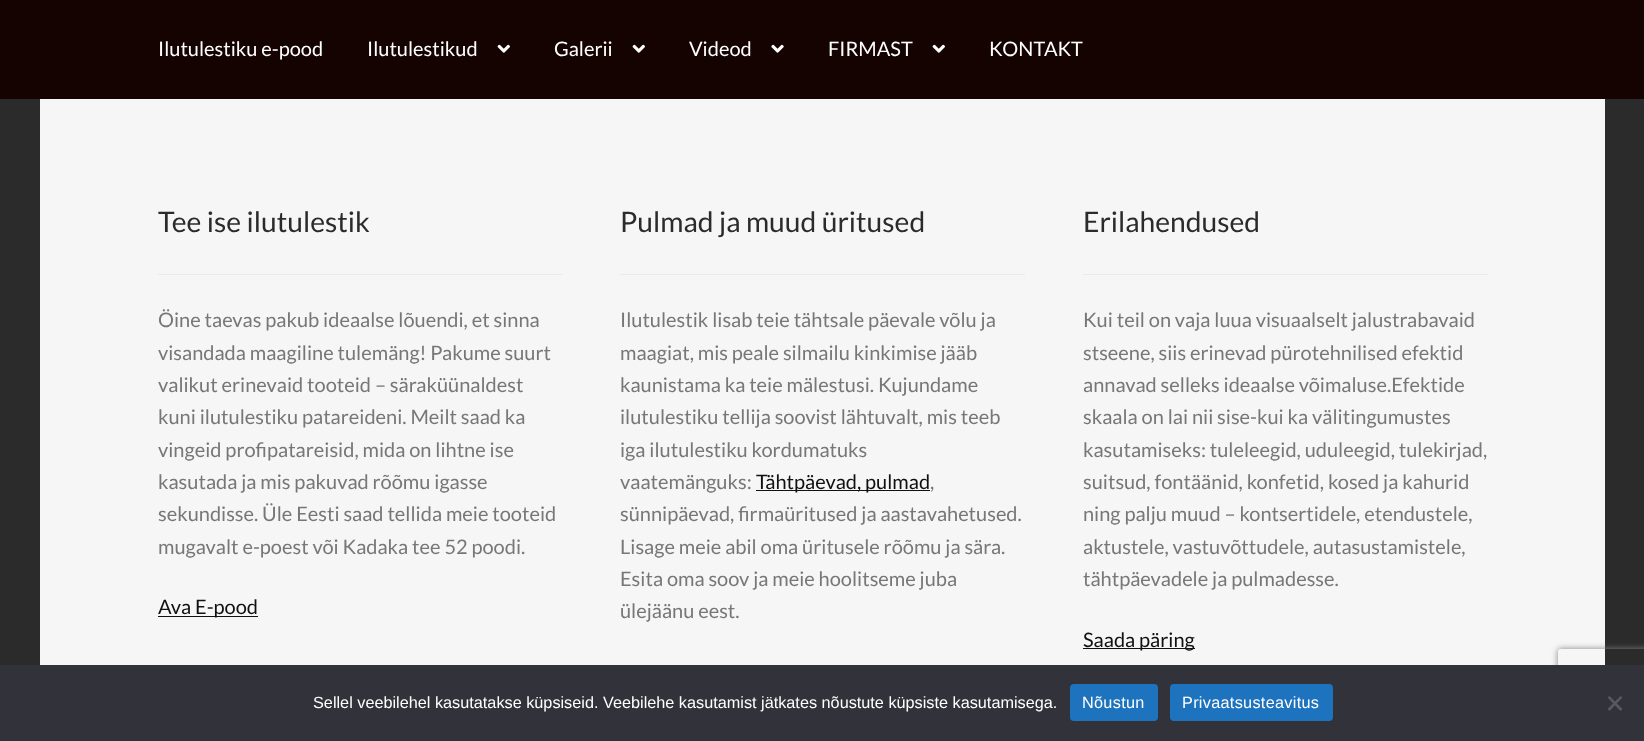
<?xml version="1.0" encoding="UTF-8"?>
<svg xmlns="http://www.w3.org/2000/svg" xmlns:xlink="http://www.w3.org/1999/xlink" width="1644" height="741">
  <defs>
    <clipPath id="clip1"><path d="M 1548 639 h 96 v 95 h -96 z m 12.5 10 h 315 c 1.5 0 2.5 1 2.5 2.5 v 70 c 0 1.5 -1 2.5 -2.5 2.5 h -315 c -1.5 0 -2.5 -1 -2.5 -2.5 v -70 c 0 -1.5 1 -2.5 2.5 -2.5 z" clip-rule="evenodd" /></clipPath>
  </defs>
  <rect width="100%" height="100%" fill="#2b2b2b" />
  <rect width="1644" height="99" fill="#140301" />
  <image x="497" y="44" width="13" height="9" xlink:href="image1.png" />
  <image x="632" y="44" width="13" height="9" xlink:href="image1.png" />
  <image x="771" y="44" width="13" height="9" xlink:href="image2.png" />
  <image x="932" y="44" width="13" height="9" xlink:href="image1.png" />
  <rect x="40" y="99" width="1565" height="566" fill="#f6f6f6" />
  <rect x="158" y="274" width="405" height="1" fill="#eaeaea" />
  <rect x="158" y="616" width="100" height="1" fill="#111111" />
  <rect x="620" y="274" width="405" height="1" fill="#eaeaea" />
  <rect x="756" y="490" width="174" height="1" fill="#111111" />
  <rect x="1083" y="274" width="405" height="1" fill="#eaeaea" />
  <rect x="1083" y="648" width="112" height="1" fill="#111111" />
  <g clip-path="url(#clip1)">
    <rect x="1558" y="649" width="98" height="75" rx="2.5" fill="#808080" filter="blur(3px)" />
  </g>
  <rect y="665" width="1644" height="76" fill="#32323a" />
  <rect x="1070" y="684" width="88" height="37" rx="4" fill="#1e73be" />
  <rect x="1170" y="684" width="163" height="37" rx="4" fill="#1e73be" />
  <path d="M 1620.5 696 l 2 1.5 l -13 13.5 l -2 -2 z" fill="#59595d" />
  <path d="M 1607.5 697.5 l 2 -1.5 l 13 13 l -2 2 z" fill="#59595d" />
  <text x="158" y="56" style="font-family: Lato; font-size: 20px; fill: #ffffff">Ilutulestiku e-pood</text>
  <text x="367" y="56" style="font-family: Lato; font-size: 20px; fill: #ffffff">Ilutulestikud</text>
  <text x="554" y="56" style="font-family: Lato; font-size: 20px; fill: #ffffff">Galerii</text>
  <text x="689" y="56" style="font-family: Lato; font-size: 20px; fill: #ffffff">Videod</text>
  <text x="828" y="56" style="font-family: Lato; font-size: 20px; fill: #ffffff">FIRMAST</text>
  <text x="989" y="56" style="font-family: Lato; font-size: 20px; fill: #ffffff">KONTAKT</text>
  <text x="158" y="232" style="font-family: Lato; font-size: 28.25px; fill: #2b2b2b">Tee ise ilutulestik</text>
  <text x="158" y="327" style="font-family: Lato; font-size: 20px; fill: #777777">Öine taevas pakub ideaalse lõuendi, et sinna</text>
  <text x="158" y="360" style="font-family: Lato; font-size: 20px; fill: #777777">visandada maagiline tulemäng! Pakume suurt</text>
  <text x="158" y="392" style="font-family: Lato; font-size: 20px; fill: #777777">valikut erinevaid tooteid – säraküünaldest</text>
  <text x="158" y="424" style="font-family: Lato; font-size: 20px; fill: #777777">kuni ilutulestiku patareideni. Meilt saad ka</text>
  <text x="158" y="457" style="font-family: Lato; font-size: 20px; fill: #777777">vingeid profipatareisid, mida on lihtne ise</text>
  <text x="158" y="489" style="font-family: Lato; font-size: 20px; fill: #777777">kasutada ja mis pakuvad rõõmu igasse</text>
  <text x="158" y="521" style="font-family: Lato; font-size: 20px; fill: #777777">sekundisse. Üle Eesti saad tellida meie tooteid</text>
  <text x="158" y="554" style="font-family: Lato; font-size: 20px; fill: #777777">mugavalt e-poest või Kadaka tee 52 poodi.</text>
  <text x="158" y="614" style="font-family: Lato; font-size: 20px; fill: #111111">Ava E-pood</text>
  <text x="620" y="232" style="font-family: Lato; font-size: 28.25px; fill: #2b2b2b">Pulmad ja muud üritused</text>
  <text x="620" y="327" style="font-family: Lato; font-size: 20px; fill: #777777">Ilutulestik lisab teie tähtsale päevale võlu ja</text>
  <text x="620" y="360" style="font-family: Lato; font-size: 20px; fill: #777777">maagiat, mis peale silmailu kinkimise jääb</text>
  <text x="620" y="392" style="font-family: Lato; font-size: 20px; fill: #777777">kaunistama ka teie mälestusi. Kujundame</text>
  <text x="620" y="424" style="font-family: Lato; font-size: 20px; fill: #777777">ilutulestiku tellija soovist lähtuvalt, mis teeb</text>
  <text x="620" y="457" style="font-family: Lato; font-size: 20px; fill: #777777">iga ilutulestiku kordumatuks</text>
  <text x="620" y="489" style="font-family: Lato; font-size: 20px; fill: #777777">vaatemänguks:</text>
  <text x="756" y="489" style="font-family: Lato; font-size: 20px; fill: #111111">Tähtpäevad, pulmad</text>
  <text x="930" y="489" style="font-family: Lato; font-size: 20px; fill: #777777">,</text>
  <text x="620" y="521" style="font-family: Lato; font-size: 20px; fill: #777777">sünnipäevad, firmaüritused ja aastavahetused.</text>
  <text x="620" y="554" style="font-family: Lato; font-size: 20px; fill: #777777">Lisage meie abil oma üritusele rõõmu ja sära.</text>
  <text x="620" y="586" style="font-family: Lato; font-size: 20px; fill: #777777">Esita oma soov ja meie hoolitseme juba</text>
  <text x="620" y="618" style="font-family: Lato; font-size: 20px; fill: #777777">ülejäänu eest.</text>
  <text x="1083" y="232" style="font-family: Lato; font-size: 28.25px; fill: #2b2b2b">Erilahendused</text>
  <text x="1083" y="327" style="font-family: Lato; font-size: 20px; fill: #777777">Kui teil on vaja luua visuaalselt jalustrabavaid</text>
  <text x="1083" y="360" style="font-family: Lato; font-size: 20px; fill: #777777">stseene, siis erinevad pürotehnilised efektid</text>
  <text x="1083" y="392" style="font-family: Lato; font-size: 20px; fill: #777777">annavad selleks ideaalse võimaluse.Efektide</text>
  <text x="1083" y="424" style="font-family: Lato; font-size: 20px; fill: #777777">skaala on lai nii sise-kui ka välitingumustes</text>
  <text x="1083" y="457" style="font-family: Lato; font-size: 20px; fill: #777777">kasutamiseks: tuleleegid, uduleegid, tulekirjad,</text>
  <text x="1083" y="489" style="font-family: Lato; font-size: 20px; fill: #777777">suitsud, fontäänid, konfetid, kosed ja kahurid</text>
  <text x="1083" y="521" style="font-family: Lato; font-size: 20px; fill: #777777">ning palju muud – kontsertidele, etendustele,</text>
  <text x="1083" y="554" style="font-family: Lato; font-size: 20px; fill: #777777">aktustele, vastuvõttudele, autasustamistele,</text>
  <text x="1083" y="586" style="font-family: Lato; font-size: 20px; fill: #777777">tähtpäevadele ja pulmadesse.</text>
  <text x="1083" y="647" style="font-family: Lato; font-size: 20px; fill: #111111">Saada päring</text>
  <text x="313" y="708" style="font-family: Liberation Sans; font-size: 16.25px; fill: #ffffff">Sellel veebilehel kasutatakse küpsiseid. Veebilehe kasutamist jätkates nõustute küpsiste kasutamisega.</text>
  <text x="1082" y="708" style="font-family: Liberation Sans; font-size: 16.25px; letter-spacing: 0.3px; fill: #ffffff">Nõustun</text>
  <text x="1182" y="708" style="font-family: Liberation Sans; font-size: 16.25px; letter-spacing: 0.3px; fill: #ffffff">Privaatsusteavitus</text>
</svg>
